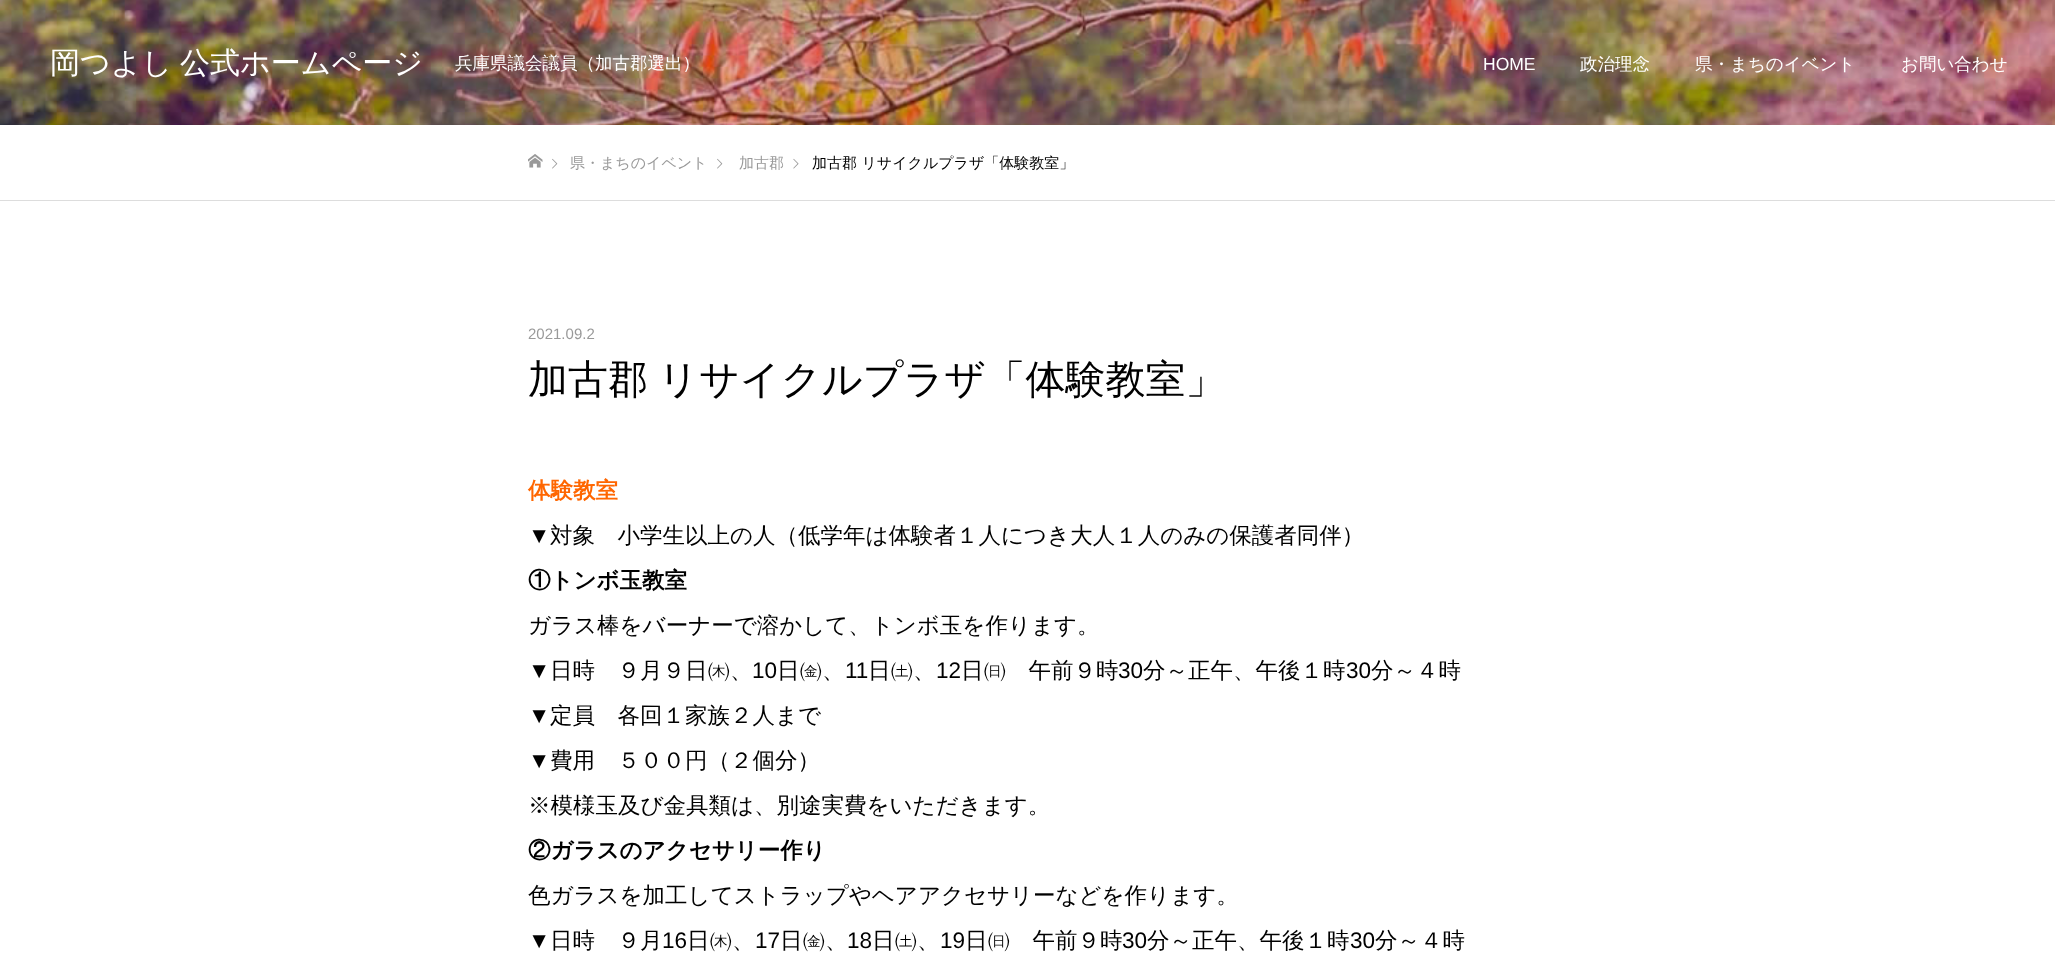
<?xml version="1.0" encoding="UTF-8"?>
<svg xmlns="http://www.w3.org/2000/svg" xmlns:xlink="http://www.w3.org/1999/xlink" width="2055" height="957">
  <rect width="100%" height="100%" fill="#ffffff" />
  <image x="0" y="0" width="2055" height="125" xlink:href="image1.png" />
  <rect y="200" width="2055" height="1" fill="#dddddd" />
  <image x="528" y="154" width="15" height="14" xlink:href="image2.png" />
  <image x="552" y="158" width="6" height="11" xlink:href="image3.png" />
  <image x="717" y="158" width="6" height="11" xlink:href="image3.png" />
  <image x="793" y="158" width="6" height="11" xlink:href="image4.png" />
  <text x="50" y="73" word-spacing="-1" style="font-family: WenQuanYi Zen Hei; font-size: 30px; font-weight: 500; fill: #ffffff">岡つよし 公式ホームページ</text>
  <text x="455" y="69" style="font-family: WenQuanYi Zen Hei; font-size: 17.5px; font-weight: 500; fill: #ffffff">兵庫県議会議員（加古郡選出）</text>
  <text x="1483" y="70" style="font-family: Liberation Sans; font-size: 17.5px; fill: #ffffff">HOME</text>
  <text x="1580" y="70" style="font-family: WenQuanYi Zen Hei; font-size: 17.5px; font-weight: 500; fill: #ffffff">政治理念</text>
  <text x="1695" y="70" style="font-family: WenQuanYi Zen Hei; font-size: 17.5px; font-weight: 500; fill: #ffffff">県・まちのイベント</text>
  <text x="1901" y="70" style="font-family: WenQuanYi Zen Hei; font-size: 17.5px; font-weight: 500; fill: #ffffff">お問い合わせ</text>
  <text x="570" y="168" style="font-family: WenQuanYi Zen Hei; font-size: 15px; font-weight: 500; fill: #999999">県・まちのイベント</text>
  <text x="739" y="168" style="font-family: WenQuanYi Zen Hei; font-size: 15px; font-weight: 500; fill: #999999">加古郡</text>
  <text x="812" y="168" style="font-family: WenQuanYi Zen Hei; font-size: 15px; font-weight: 500; fill: #000000">加古郡 リサイクルプラザ「体験教室」</text>
  <text x="528" y="339" style="font-family: Liberation Sans; font-size: 15px; fill: #999999">2021.09.2</text>
  <text x="528" y="393" word-spacing="-2" style="font-family: WenQuanYi Zen Hei; font-size: 40px; font-weight: 500; fill: #000000">加古郡 リサイクルプラザ「体験教室」</text>
  <text x="528" y="498" style="font-family: WenQuanYi Zen Hei; font-size: 22.5px; font-weight: bold; fill: #ff6600">体験教室</text>
  <text x="528" y="543" style="font-family: Liberation Sans; font-size: 22.5px; fill: #000000">▼</text>
  <text x="550" y="543" style="font-family: WenQuanYi Zen Hei; font-size: 22.5px; font-weight: 500; fill: #000000">対象　小学生以上の人（低学年は体験者１人につき大人１人のみの保護者同伴）</text>
  <text x="528" y="588" style="font-family: WenQuanYi Zen Hei; font-size: 22.5px; font-weight: bold; fill: #000000">①トンボ玉教室</text>
  <text x="528" y="633" style="font-family: WenQuanYi Zen Hei; font-size: 22.5px; font-weight: 500; fill: #000000">ガラス棒をバーナーで溶かして、トンボ玉を作ります。</text>
  <text x="528" y="678" style="font-family: Liberation Sans; font-size: 22.5px; fill: #000000">▼</text>
  <text x="550" y="678" style="font-family: WenQuanYi Zen Hei; font-size: 22.5px; font-weight: 500; fill: #000000">日時　９月９日㈭、</text>
  <text x="752" y="678" style="font-family: Liberation Sans; font-size: 22.5px; fill: #000000">10</text>
  <text x="777" y="678" style="font-family: WenQuanYi Zen Hei; font-size: 22.5px; font-weight: 500; fill: #000000">日㈮、</text>
  <text x="845" y="678" style="font-family: Liberation Sans; font-size: 22.5px; fill: #000000">11</text>
  <text x="868" y="678" style="font-family: WenQuanYi Zen Hei; font-size: 22.5px; font-weight: 500; fill: #000000">日㈯、</text>
  <text x="936" y="678" style="font-family: Liberation Sans; font-size: 22.5px; fill: #000000">12</text>
  <text x="961" y="678" style="font-family: WenQuanYi Zen Hei; font-size: 22.5px; font-weight: 500; fill: #000000">日㈰　午前９時</text>
  <text x="1118" y="678" style="font-family: Liberation Sans; font-size: 22.5px; fill: #000000">30</text>
  <text x="1143" y="678" style="font-family: WenQuanYi Zen Hei; font-size: 22.5px; font-weight: 500; fill: #000000">分～正午、午後１時</text>
  <text x="1346" y="678" style="font-family: Liberation Sans; font-size: 22.5px; fill: #000000">30</text>
  <text x="1371" y="678" style="font-family: WenQuanYi Zen Hei; font-size: 22.5px; font-weight: 500; fill: #000000">分～４時</text>
  <text x="528" y="723" style="font-family: Liberation Sans; font-size: 22.5px; fill: #000000">▼</text>
  <text x="550" y="723" style="font-family: WenQuanYi Zen Hei; font-size: 22.5px; font-weight: 500; fill: #000000">定員　各回１家族２人まで</text>
  <text x="528" y="768" style="font-family: Liberation Sans; font-size: 22.5px; fill: #000000">▼</text>
  <text x="550" y="768" style="font-family: WenQuanYi Zen Hei; font-size: 22.5px; font-weight: 500; fill: #000000">費用　５００円（２個分）</text>
  <text x="528" y="813" style="font-family: WenQuanYi Zen Hei; font-size: 22.5px; font-weight: 500; fill: #000000">※模様玉及び金具類は、別途実費をいただきます。</text>
  <text x="528" y="858" style="font-family: WenQuanYi Zen Hei; font-size: 22.5px; font-weight: bold; fill: #000000">②ガラスのアクセサリー作り</text>
  <text x="528" y="903" style="font-family: WenQuanYi Zen Hei; font-size: 22.5px; font-weight: 500; fill: #000000">色ガラスを加工してストラップやヘアアクセサリーなどを作ります。</text>
  <text x="528" y="948" style="font-family: Liberation Sans; font-size: 22.5px; fill: #000000">▼</text>
  <text x="550" y="948" style="font-family: WenQuanYi Zen Hei; font-size: 22.5px; font-weight: 500; fill: #000000">日時　９月</text>
  <text x="662" y="948" style="font-family: Liberation Sans; font-size: 22.5px; fill: #000000">16</text>
  <text x="687" y="948" style="font-family: WenQuanYi Zen Hei; font-size: 22.5px; font-weight: 500; fill: #000000">日㈭、</text>
  <text x="755" y="948" style="font-family: Liberation Sans; font-size: 22.5px; fill: #000000">17</text>
  <text x="780" y="948" style="font-family: WenQuanYi Zen Hei; font-size: 22.5px; font-weight: 500; fill: #000000">日㈮、</text>
  <text x="847" y="948" style="font-family: Liberation Sans; font-size: 22.5px; fill: #000000">18</text>
  <text x="872" y="948" style="font-family: WenQuanYi Zen Hei; font-size: 22.5px; font-weight: 500; fill: #000000">日㈯、</text>
  <text x="940" y="948" style="font-family: Liberation Sans; font-size: 22.5px; fill: #000000">19</text>
  <text x="965" y="948" style="font-family: WenQuanYi Zen Hei; font-size: 22.5px; font-weight: 500; fill: #000000">日㈰　午前９時</text>
  <text x="1122" y="948" style="font-family: Liberation Sans; font-size: 22.5px; fill: #000000">30</text>
  <text x="1147" y="948" style="font-family: WenQuanYi Zen Hei; font-size: 22.5px; font-weight: 500; fill: #000000">分～正午、午後１時</text>
  <text x="1350" y="948" style="font-family: Liberation Sans; font-size: 22.5px; fill: #000000">30</text>
  <text x="1375" y="948" style="font-family: WenQuanYi Zen Hei; font-size: 22.5px; font-weight: 500; fill: #000000">分～４時</text>
</svg>
